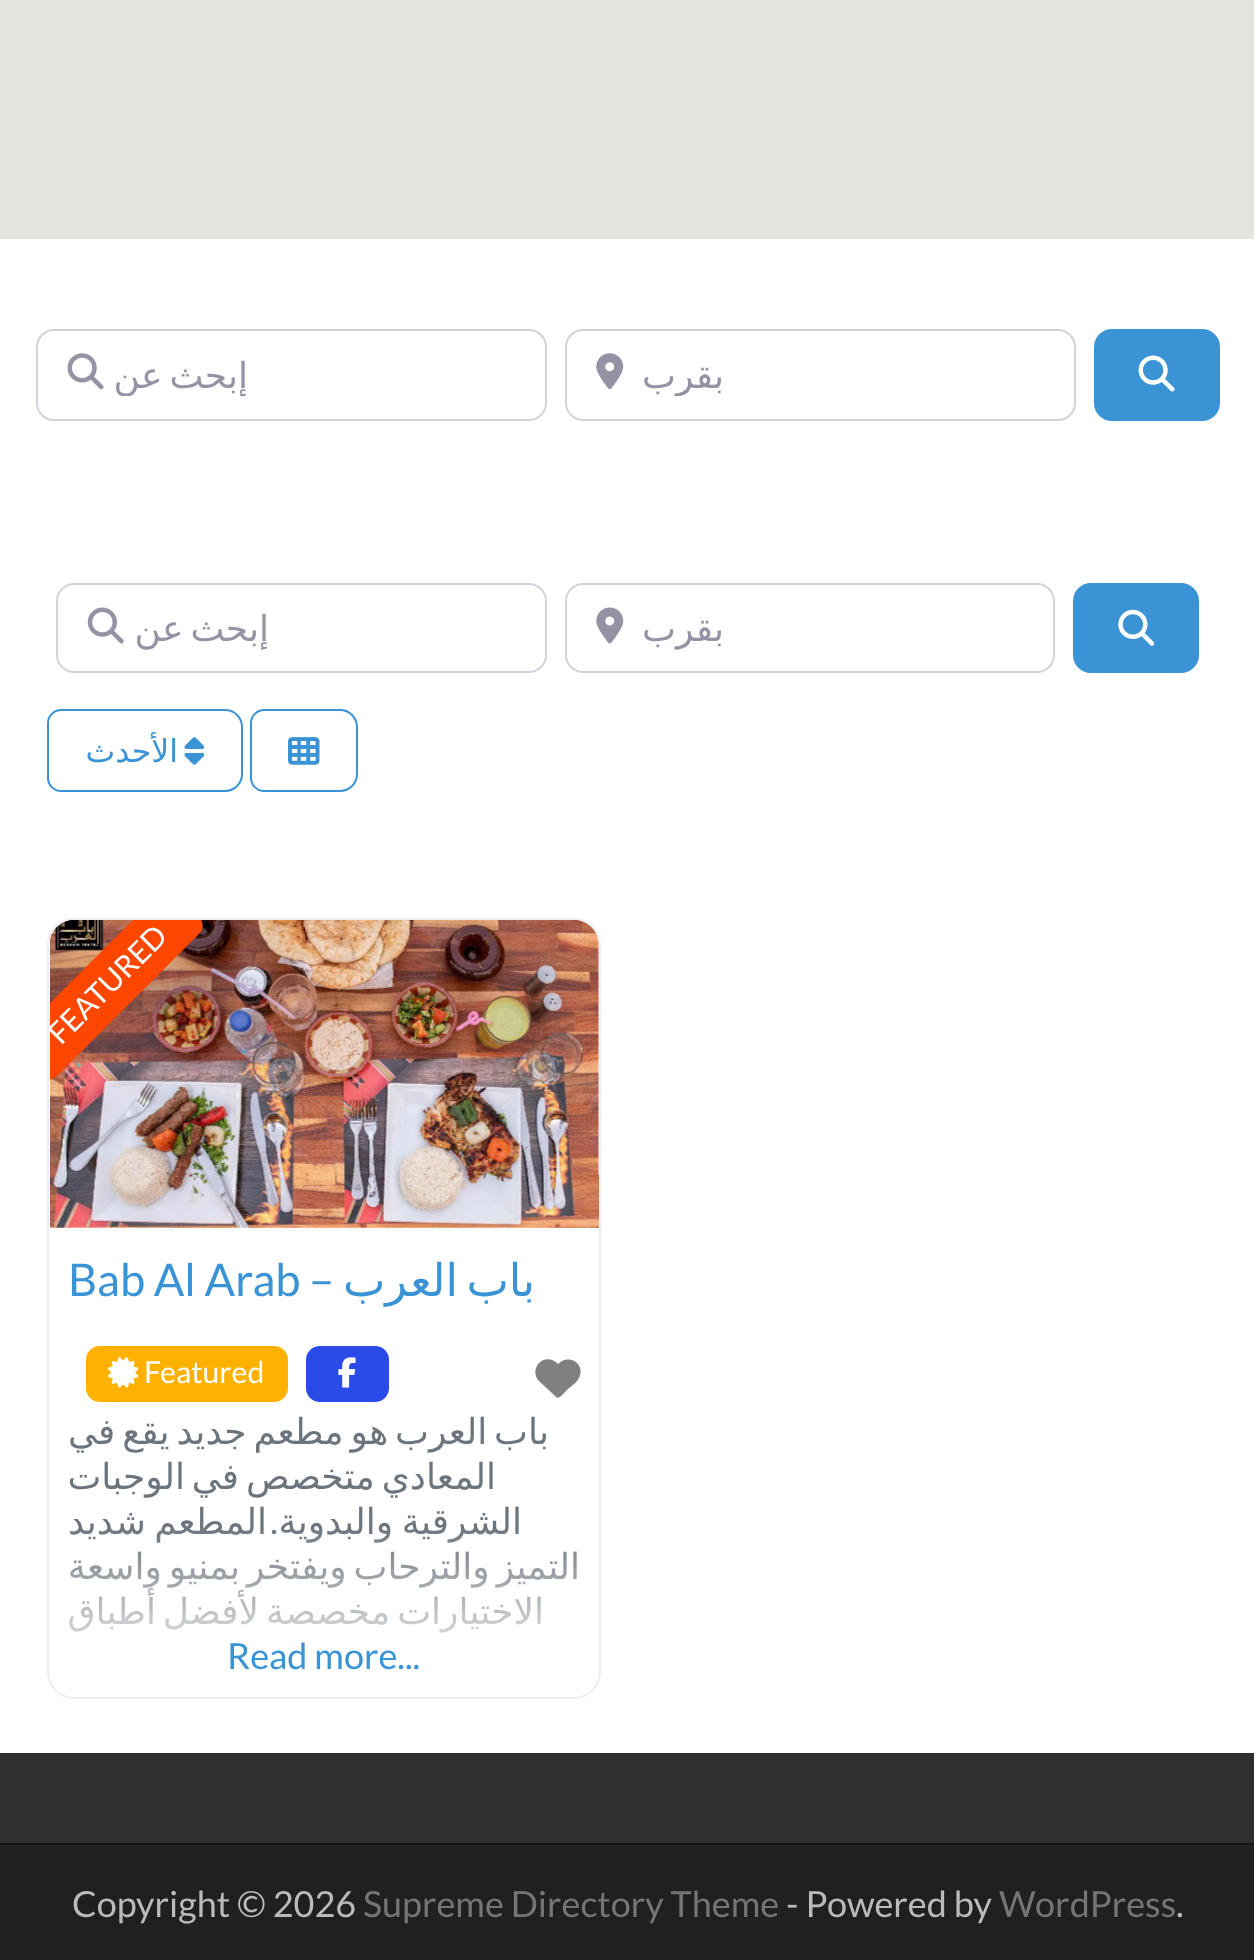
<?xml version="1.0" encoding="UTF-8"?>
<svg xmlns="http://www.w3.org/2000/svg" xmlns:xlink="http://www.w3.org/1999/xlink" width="1254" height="1960">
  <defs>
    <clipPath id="clip1"><path d="M 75 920 h 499 c 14 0 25 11 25 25 v 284 h -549 v -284 c 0 -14 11 -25 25 -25 z" /></clipPath>
    <clipPath id="clip2"><rect x="641" y="351" width="392" height="45" /></clipPath>
    <clipPath id="clip3"><rect x="115" y="351" width="389" height="45" /></clipPath>
    <clipPath id="clip4"><path d="M 75 920 h 499 c 14 0 25 11 25 25 v 284 h -549 v -284 c 0 -14 11 -25 25 -25 z" /></clipPath>
    <clipPath id="clip5"><rect x="68" y="1409" width="513" height="270" /></clipPath>
    <linearGradient id="g1" gradientUnits="userSpaceOnUse" x1="324" y1="1526" x2="324" y2="1679"><stop offset="0" stop-color="#ffffff" stop-opacity="0" /><stop offset="1" stop-color="#ffffff" /></linearGradient>
  </defs>
  <rect width="100%" height="100%" fill="#ffffff" />
  <rect width="1254" height="239" fill="#e5e3df" />
  <rect x="1095" y="330" width="124" height="90" rx="17" fill="#3993d5" stroke="#3993d5" stroke-width="2" />
  <image x="1138" y="355" width="37" height="37" xlink:href="image1.png" />
  <rect x="566" y="330" width="509" height="90" rx="17" fill="none" stroke="#d5d2dc" stroke-width="2" />
  <image x="596" y="353" width="28" height="37" xlink:href="image2.png" />
  <rect x="37" y="330" width="509" height="90" rx="17" fill="none" stroke="#d5d2dc" stroke-width="2" />
  <image x="67" y="353" width="37" height="37" xlink:href="image3.png" />
  <rect x="1074" y="584" width="124" height="88" rx="17" fill="#3993d5" stroke="#3993d5" stroke-width="2" />
  <image x="1118" y="609" width="37" height="37" xlink:href="image4.png" />
  <rect x="566" y="584" width="488" height="88" rx="17" fill="none" stroke="#d5d2dc" stroke-width="2" />
  <image x="596" y="607" width="28" height="37" xlink:href="image5.png" />
  <rect x="57" y="584" width="489" height="88" rx="17" fill="none" stroke="#d5d2dc" stroke-width="2" />
  <image x="87" y="607" width="37" height="37" xlink:href="image6.png" />
  <path d="M 264 710 h 76 c 9.5 0 17 7.5 17 17 v 47 c 0 9.5 -7.5 17 -17 17 h -76 c -7 0 -13 -6 -13 -13 v -55 c 0 -7 6 -13 13 -13 z" fill="none" stroke="#3993d5" stroke-width="2" />
  <image x="288" y="737" width="32" height="28" xlink:href="image7.png" />
  <path d="M 61 710 h 164 c 9.5 0 17 7.5 17 17 v 47 c 0 9.5 -7.5 17 -17 17 h -164 c -7 0 -13 -6 -13 -13 v -55 c 0 -7 6 -13 13 -13 z" fill="none" stroke="#3993d5" stroke-width="2" />
  <image x="184" y="737" width="21" height="28" xlink:href="image8.png" />
  <rect x="48" y="919" width="552" height="779" rx="26" fill="none" stroke="#efecf3" stroke-width="2" />
  <image x="50" y="920" width="549" height="308" xlink:href="image9.png" />
  <g clip-path="url(#clip1)">
    <rect x="-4" y="965" width="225" height="57" rx="14" fill="#1f1b2d" fill-opacity="0.12" filter="blur(18px)" />
    <rect x="5" y="970" width="207" height="38" rx="5" fill="#1f1b2d" fill-opacity="0.12" filter="blur(9px)" />
  </g>
  <path d="M 201 920 c 3 5 2 11 -3 15 l -140 140 c -2 2 -5 3 -8 4 v -76 l 83 -83 z" fill="#fd4700" />
  <path d="M 540 1382 l 16 15 l -16 -15 l 13 12 c 5 5 5 5 10 0 l 5 -5 c 4 -3 9 -7 11 -11 c 7 -14 -10 -25 -21 -14 c -14 -14 -31 6 -18 18 z" fill="#808080" />
  <rect x="306" y="1346" width="83" height="56" rx="14" fill="#2b4be8" />
  <image x="338" y="1357" width="18" height="31" xlink:href="image10.png" />
  <rect x="86" y="1346" width="202" height="56" rx="14" fill="#ffb100" />
  <image x="108" y="1357" width="31" height="31" xlink:href="image11.png" />
  <rect y="1753" width="1254" height="90" fill="#2f2f2f" />
  <rect y="1845" width="1254" height="115" fill="#202020" />
  <rect y="1843" width="1254" height="2" fill="#151515" />
  <g clip-path="url(#clip2)">
    <text x="724" y="388" style="font-family: DejaVu Sans; font-size: 36px; direction: rtl; fill: #9691a4">بقرب</text>
  </g>
  <g clip-path="url(#clip3)">
    <text x="248" y="388" word-spacing="-4.5" style="font-family: DejaVu Sans; font-size: 36px; direction: rtl; fill: #9691a4">إبحث عن</text>
  </g>
  <text x="724" y="641" style="font-family: DejaVu Sans; font-size: 36px; direction: rtl; fill: #9691a4">بقرب</text>
  <text x="269" y="641" word-spacing="-4.5" style="font-family: DejaVu Sans; font-size: 36px; direction: rtl; fill: #9691a4">إبحث عن</text>
  <text x="178" y="762" style="font-family: DejaVu Sans; font-size: 31.5px; direction: rtl; fill: #3993d5">الأحدث</text>
  <g clip-path="url(#clip4)">
    <text x="61" y="1046" transform="rotate(-45 61 1046)" style="font-family: Lato; font-size: 30.25px; fill: #ffffff">FEATURED</text>
  </g>
  <text x="535" y="1296" word-spacing="-6" style="font-family: DejaVu Sans; font-size: 45px; direction: rtl; fill: #3993d5">باب العرب</text>
  <text x="68" y="1296" style="font-family: Lato; font-size: 45px; fill: #3993d5">Bab Al Arab –</text>
  <text x="144" y="1383" style="font-family: Lato; font-size: 30.25px; fill: #ffffff">Featured</text>
  <text x="549" y="1444" word-spacing="-4.5" style="font-family: DejaVu Sans; font-size: 36px; direction: rtl; fill: #6c757d">باب العرب هو مطعم جديد يقع في</text>
  <text x="496" y="1489" word-spacing="-4.5" style="font-family: DejaVu Sans; font-size: 36px; direction: rtl; fill: #6c757d">المعادي متخصص في الوجبات</text>
  <text x="522" y="1534" word-spacing="-3" style="font-family: DejaVu Sans; font-size: 36px; direction: rtl; fill: #6c757d">الشرقية والبدوية</text>
  <text x="278" y="1534" style="font-family: Lato; font-size: 36px; direction: rtl; fill: #6c757d">.</text>
  <text x="267" y="1534" word-spacing="-3" style="font-family: DejaVu Sans; font-size: 36px; direction: rtl; fill: #6c757d">المطعم شديد</text>
  <g clip-path="url(#clip5)">
    <text x="580" y="1579" word-spacing="-4.5" style="font-family: DejaVu Sans; font-size: 36px; direction: rtl; fill: #6c757d">التميز والترحاب ويفتخر بمنيو واسعة</text>
  </g>
  <text x="544" y="1624" word-spacing="-4.5" style="font-family: DejaVu Sans; font-size: 36px; direction: rtl; fill: #6c757d">الاختيارات مخصصة لأفضل أطباق</text>
  <rect x="69" y="1529" width="512" height="104" fill="url(#g1)" />
  <text x="227" y="1669" style="font-family: Lato; font-size: 36px; fill: #3993d5">Read more...</text>
  <text x="1176" y="1917" style="font-family: Lato; font-size: 36px; fill: #bbbbbb">.</text>
  <text x="999" y="1917" style="font-family: Lato; font-size: 36px; fill: #757575">WordPress</text>
  <text x="786" y="1917" style="font-family: Lato; font-size: 36px; fill: #bbbbbb">- Powered by</text>
  <text x="363" y="1917" style="font-family: Lato; font-size: 36px; fill: #757575">Supreme Directory Theme</text>
  <text x="72" y="1917" style="font-family: Lato; font-size: 36px; fill: #bbbbbb">Copyright © 2026</text>
</svg>
